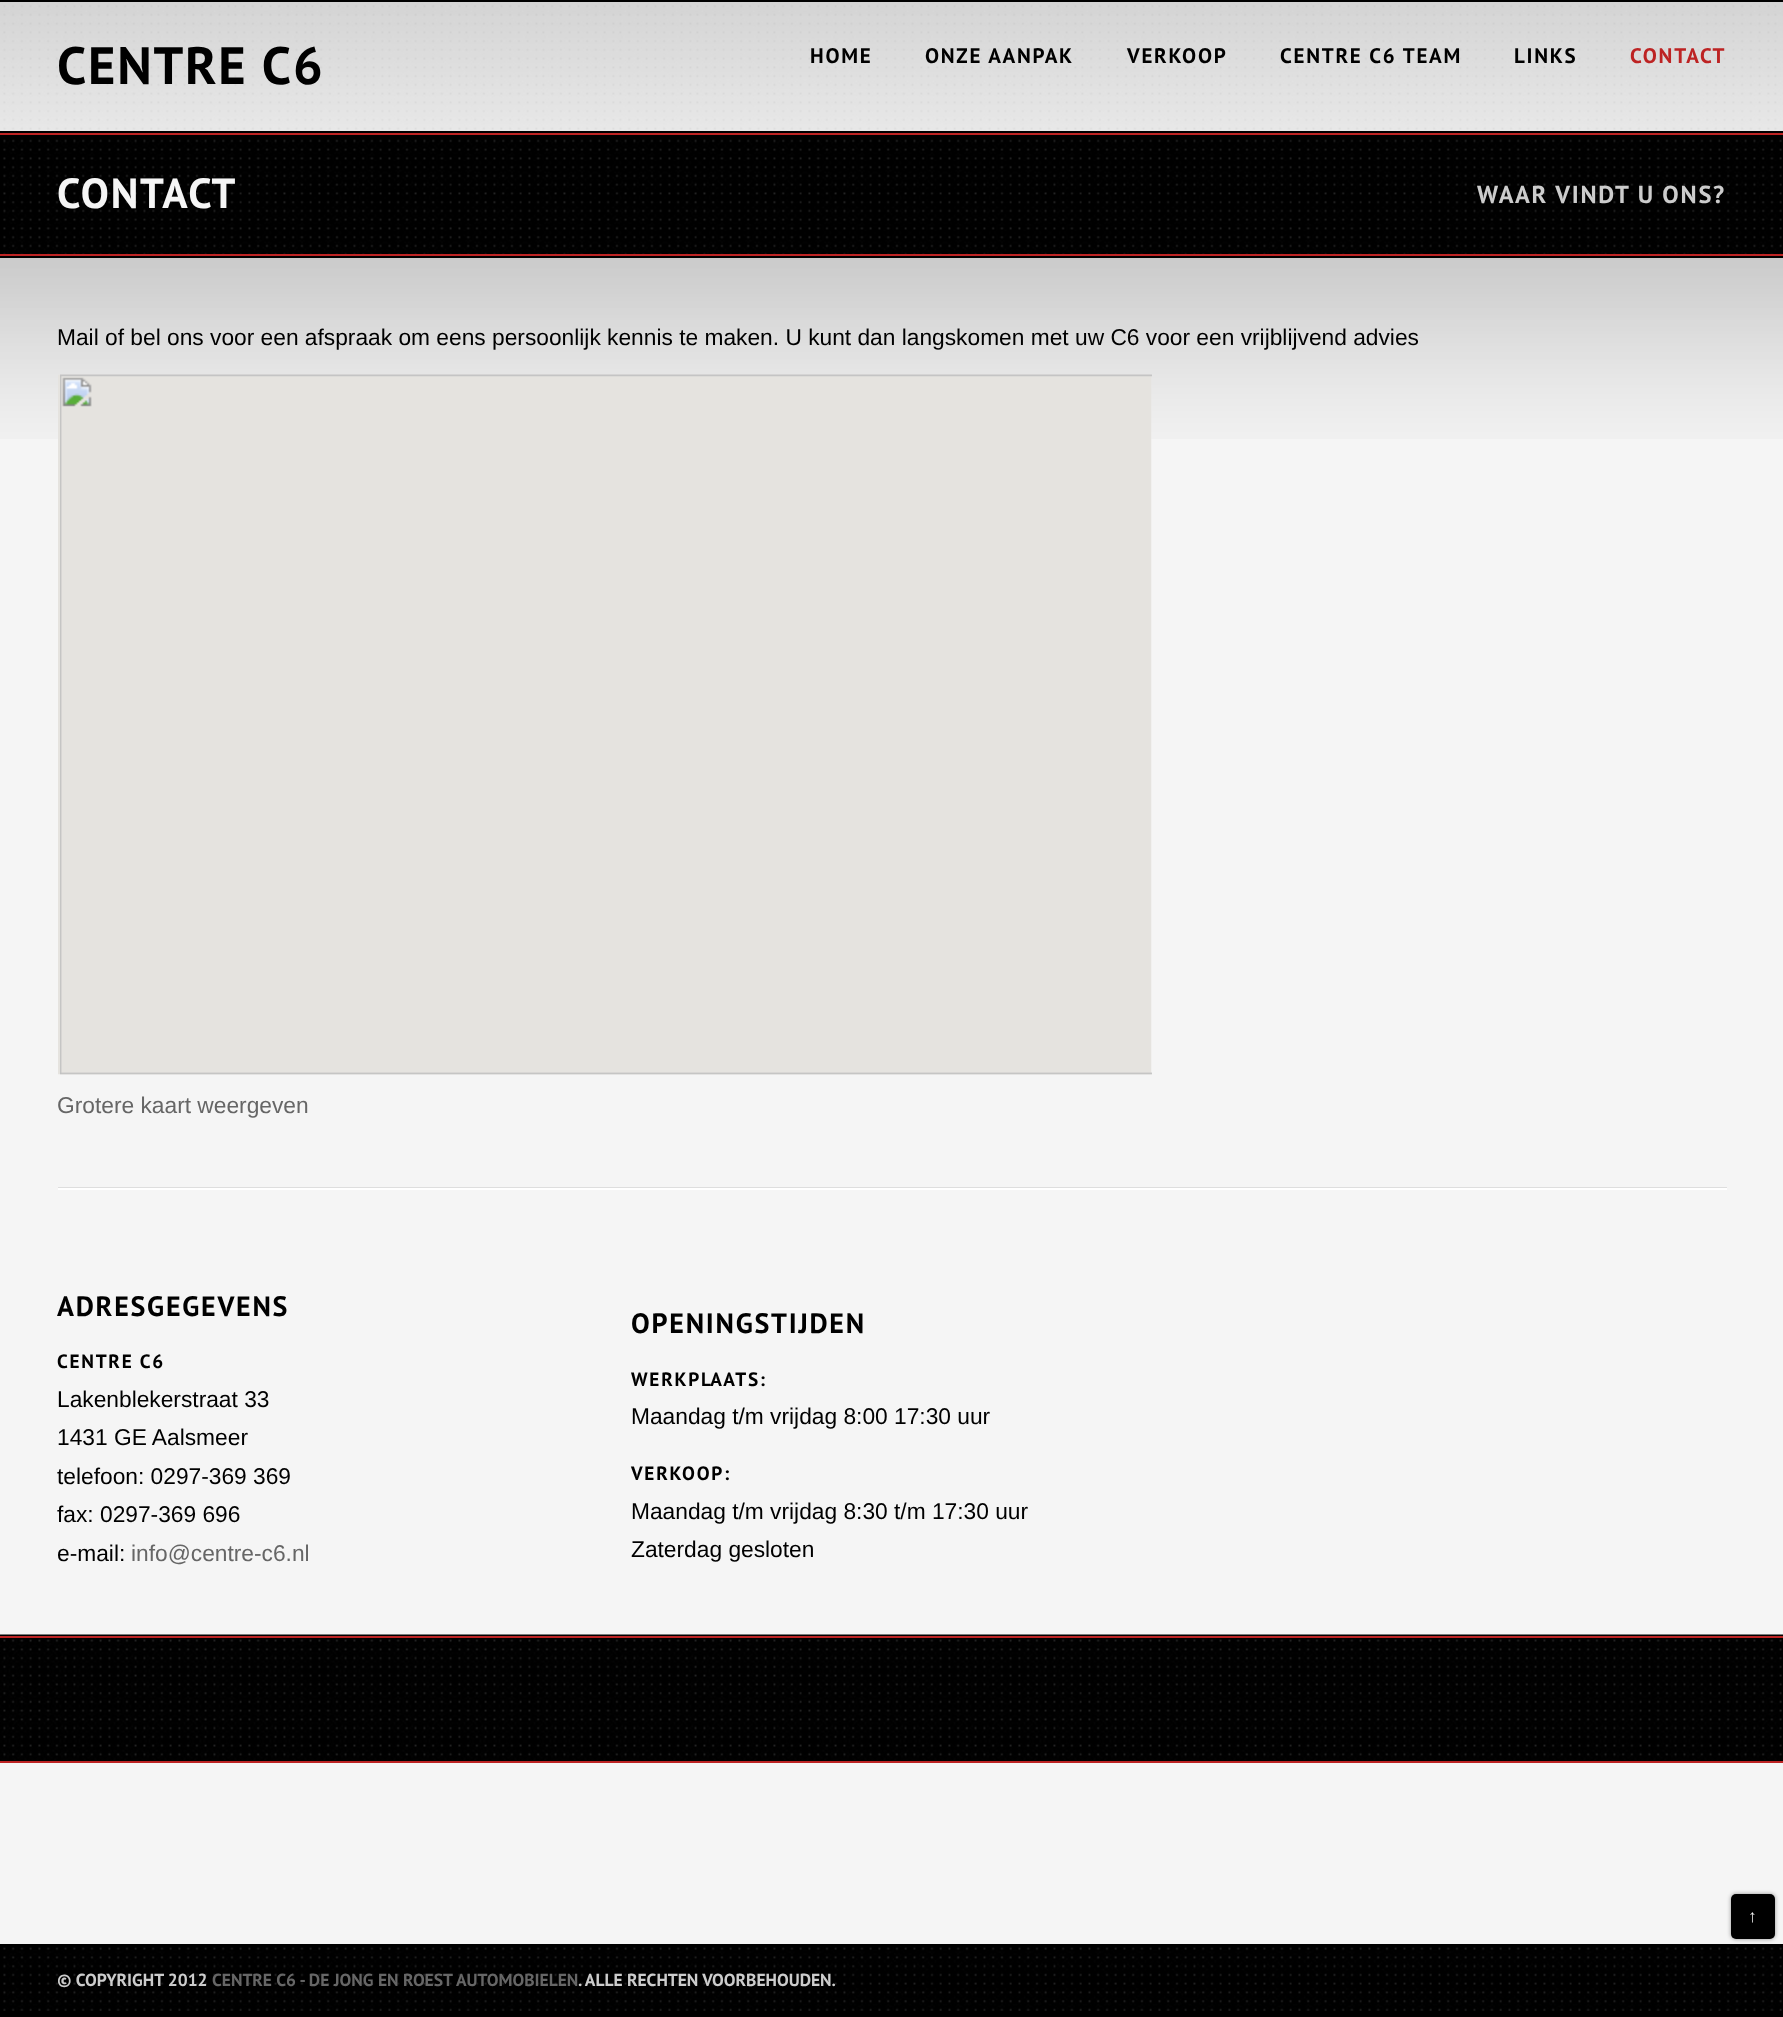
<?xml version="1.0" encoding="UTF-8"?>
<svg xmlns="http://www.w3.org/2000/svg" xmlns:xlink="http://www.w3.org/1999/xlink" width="1783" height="2017">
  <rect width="100%" height="100%" fill="#f5f5f5" />
  <image x="0" y="2" width="1783" height="129" xlink:href="image1.png" />
  <rect width="1783" height="2" fill="#000000" />
  <rect y="131" width="1783" height="2" fill="#000000" />
  <rect y="135" width="1783" height="119" fill="#000000" />
  <image x="3" y="139" width="1779" height="115" xlink:href="image2.png" />
  <rect y="133" width="1783" height="2" fill="#bd2323" />
  <rect y="254" width="1783" height="2" fill="#bd2323" />
  <image x="0" y="258" width="1783" height="181" xlink:href="image3.png" />
  <rect y="256" width="1783" height="2" fill="#000000" />
  <image x="58" y="374" width="1094" height="701" xlink:href="image4.png" />
  <rect x="58" y="1187" width="1669" height="1" fill="#dedede" />
  <rect x="58" y="1188" width="1669" height="2" fill="#ffffff" />
  <image x="0" y="1634" width="1783" height="127" xlink:href="image5.png" />
  <rect x="9" y="1635" width="1751" height="1" fill="#000000" />
  <rect y="1636" width="1783" height="2" fill="#bd2323" />
  <rect y="1761" width="1783" height="2" fill="#bd2323" />
  <rect x="1731" y="1894" width="44" height="45" rx="5" fill="#000000" fill-opacity="0.4" filter="blur(2px)" />
  <rect x="1731" y="1894" width="44" height="45" rx="5" fill="#000000" />
  <rect y="1944" width="1783" height="73" fill="#000000" />
  <image x="3" y="1947" width="1779" height="64" xlink:href="image6.png" />
  <text x="57" y="84" style="font-family: PT Sans; font-size: 52.5px; font-weight: bold; letter-spacing: 1.75px; fill: #000000">CENTRE C6</text>
  <text x="810" y="63" style="font-family: PT Sans; font-size: 21px; font-weight: bold; letter-spacing: 1.75px; fill: #000000">HOME</text>
  <text x="925" y="63" style="font-family: PT Sans; font-size: 21px; font-weight: bold; letter-spacing: 1.75px; fill: #000000">ONZE AANPAK</text>
  <text x="1127" y="63" style="font-family: PT Sans; font-size: 21px; font-weight: bold; letter-spacing: 1.75px; fill: #000000">VERKOOP</text>
  <text x="1280" y="63" style="font-family: PT Sans; font-size: 21px; font-weight: bold; letter-spacing: 1.75px; fill: #000000">CENTRE C6 TEAM</text>
  <text x="1514" y="63" style="font-family: PT Sans; font-size: 21px; font-weight: bold; letter-spacing: 1.75px; fill: #000000">LINKS</text>
  <text x="1630" y="63" style="font-family: PT Sans; font-size: 21px; font-weight: bold; letter-spacing: 1.75px; fill: #bd2323">CONTACT</text>
  <text x="57" y="208" style="font-family: PT Sans; font-size: 42px; font-weight: bold; letter-spacing: 1.75px; fill: #f5f5f5">CONTACT</text>
  <text x="1477" y="203" style="font-family: PT Sans; font-size: 24.5px; font-weight: bold; letter-spacing: 1.75px; fill: #cccccc">WAAR VINDT U ONS?</text>
  <text x="57" y="345" style="font-family: Liberation Sans; font-size: 22.75px; fill: #000000">Mail of bel ons voor een afspraak om eens persoonlijk kennis te maken. U kunt dan langskomen met uw C6 voor een vrijblijvend advies</text>
  <text x="57" y="1113" style="font-family: Liberation Sans; font-size: 22.75px; fill: #666666">Grotere kaart weergeven</text>
  <text x="57" y="1316" style="font-family: PT Sans; font-size: 28px; font-weight: bold; letter-spacing: 1.75px; fill: #000000">ADRESGEGEVENS</text>
  <text x="57" y="1368" style="font-family: PT Sans; font-size: 19.25px; font-weight: bold; letter-spacing: 1.75px; fill: #000000">CENTRE C6</text>
  <text x="57" y="1407" style="font-family: Liberation Sans; font-size: 22.75px; fill: #000000">Lakenblekerstraat 33</text>
  <text x="57" y="1445" style="font-family: Liberation Sans; font-size: 22.75px; fill: #000000">1431 GE Aalsmeer</text>
  <text x="57" y="1484" style="font-family: Liberation Sans; font-size: 22.75px; fill: #000000">telefoon: 0297-369 369</text>
  <text x="57" y="1522" style="font-family: Liberation Sans; font-size: 22.75px; fill: #000000">fax: 0297-369 696</text>
  <text x="57" y="1561" style="font-family: Liberation Sans; font-size: 22.75px; fill: #000000">e-mail:</text>
  <text x="131" y="1561" style="font-family: Liberation Sans; font-size: 22.75px; fill: #666666">info@centre-c6.nl</text>
  <text x="631" y="1333" style="font-family: PT Sans; font-size: 28px; font-weight: bold; letter-spacing: 1.75px; fill: #000000">OPENINGSTIJDEN</text>
  <text x="631" y="1386" style="font-family: PT Sans; font-size: 19.25px; font-weight: bold; letter-spacing: 1.75px; fill: #000000">WERKPLAATS:</text>
  <text x="631" y="1424" style="font-family: Liberation Sans; font-size: 22.75px; fill: #000000">Maandag t/m vrijdag 8:00 17:30 uur</text>
  <text x="631" y="1480" style="font-family: PT Sans; font-size: 19.25px; font-weight: bold; letter-spacing: 1.75px; fill: #000000">VERKOOP:</text>
  <text x="631" y="1519" style="font-family: Liberation Sans; font-size: 22.75px; fill: #000000">Maandag t/m vrijdag 8:30 t/m 17:30 uur</text>
  <text x="631" y="1557" style="font-family: Liberation Sans; font-size: 22.75px; fill: #000000">Zaterdag gesloten</text>
  <text x="1748" y="1922" style="font-family: Liberation Sans; font-size: 17.5px; fill: #f5f5f5">↑</text>
  <text x="57" y="1986" style="font-family: PT Sans; font-size: 17.5px; font-weight: bold; fill: #cccccc">© COPYRIGHT 2012</text>
  <text x="212" y="1986" style="font-family: PT Sans; font-size: 17.5px; font-weight: bold; fill: #666666">CENTRE C6 - DE JONG EN ROEST AUTOMOBIELEN</text>
  <text x="578" y="1986" style="font-family: PT Sans; font-size: 17.5px; font-weight: bold; fill: #cccccc">. ALLE RECHTEN VOORBEHOUDEN.</text>
</svg>
